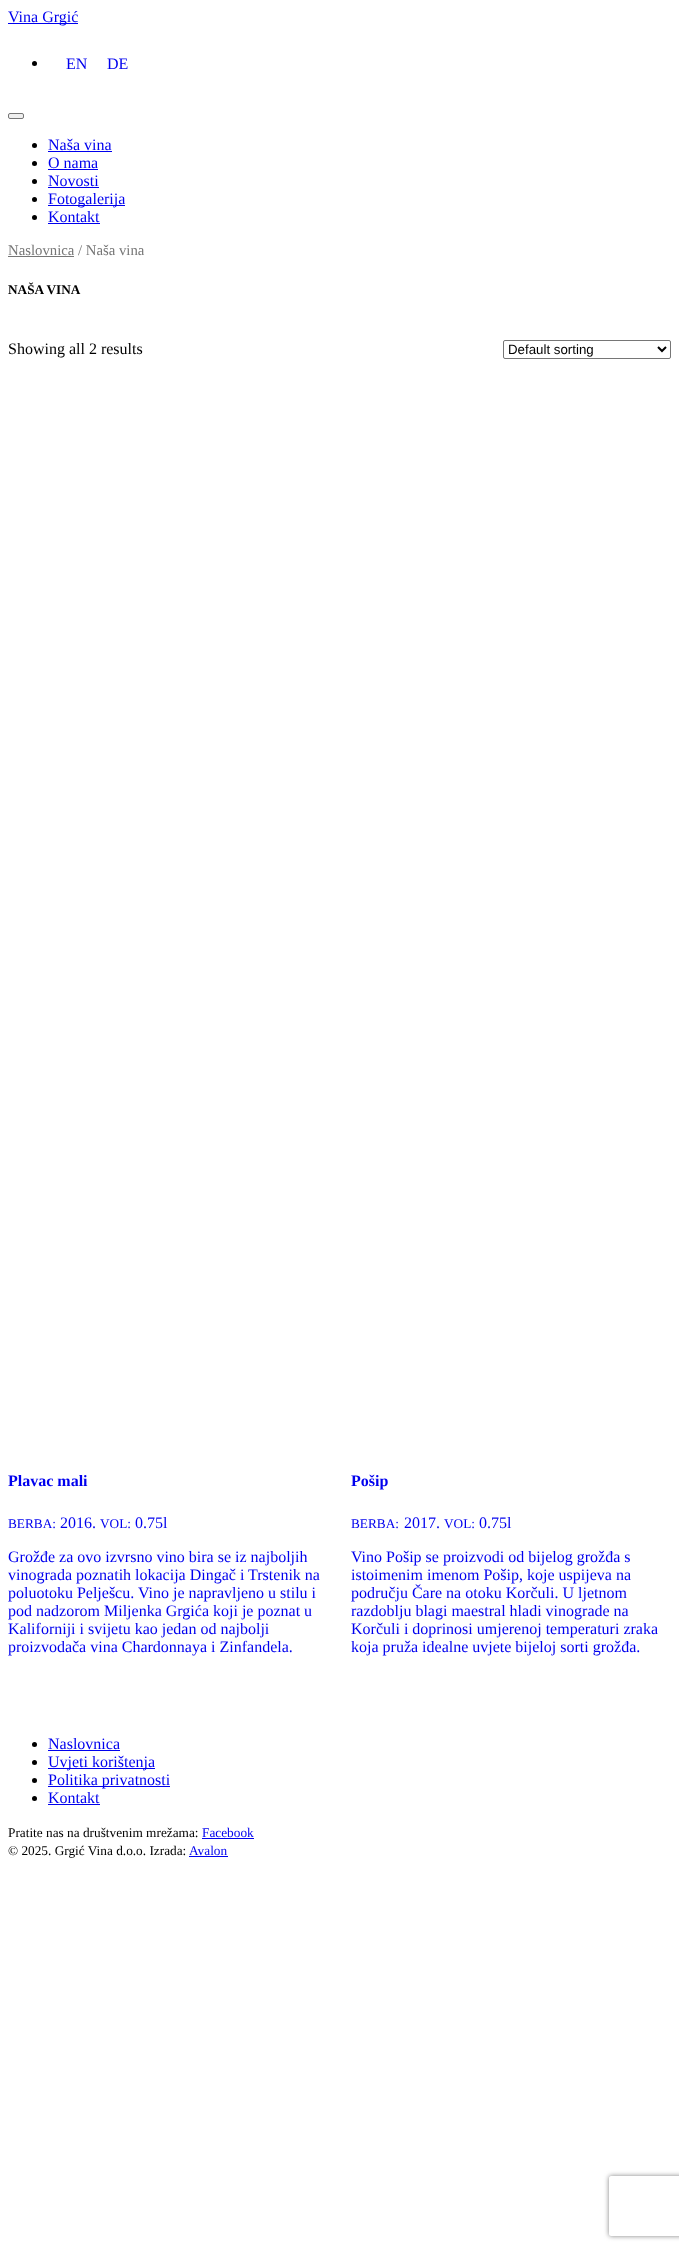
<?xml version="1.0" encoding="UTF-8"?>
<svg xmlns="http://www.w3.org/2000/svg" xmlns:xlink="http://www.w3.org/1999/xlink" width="679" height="2250">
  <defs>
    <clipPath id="clip1"><path d="M 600 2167 h 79 v 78 h -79 z m 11 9 h 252 c 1 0 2 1 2 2 v 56 c 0 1 -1 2 -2 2 h -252 c -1 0 -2 -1 -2 -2 v -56 c 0 -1 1 -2 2 -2 z" clip-rule="evenodd" /></clipPath>
  </defs>
  <rect width="100%" height="100%" fill="#ffffff" />
  <rect x="8" y="23" width="70" height="1" fill="#0000ee" />
  <circle cx="34.5" cy="63.5" r="2.5" fill="#000000" />
  <rect x="8.5" y="113.5" width="15" height="5" rx="1.5" fill="#efefef" stroke="#767676" />
  <circle cx="34.5" cy="145.5" r="2.5" fill="#000000" />
  <rect x="48" y="151" width="64" height="1" fill="#0000ee" />
  <circle cx="34.5" cy="163.5" r="2.5" fill="#000000" />
  <rect x="48" y="169" width="50" height="1" fill="#0000ee" />
  <circle cx="34.5" cy="181.5" r="2.5" fill="#000000" />
  <rect x="48" y="187" width="51" height="1" fill="#0000ee" />
  <circle cx="34.5" cy="199.5" r="2.5" fill="#000000" />
  <rect x="48" y="205" width="77" height="1" fill="#0000ee" />
  <circle cx="34.5" cy="217.5" r="2.5" fill="#000000" />
  <rect x="48" y="223" width="52" height="1" fill="#0000ee" />
  <rect x="8" y="256" width="66" height="1" fill="#767676" />
  <rect x="503.5" y="340.5" width="167" height="18" rx="1.5" fill="none" stroke="#767676" />
  <path d="M 658 347 l 4 4 l 4 -4" fill="none" stroke="#000000" stroke-width="2" />
  <circle cx="34.5" cy="1744.5" r="2.5" fill="#000000" />
  <rect x="48" y="1750" width="72" height="1" fill="#0000ee" />
  <circle cx="34.5" cy="1762.5" r="2.5" fill="#000000" />
  <rect x="48" y="1768" width="107" height="1" fill="#0000ee" />
  <circle cx="34.5" cy="1780.5" r="2.5" fill="#000000" />
  <rect x="48" y="1786" width="122" height="1" fill="#0000ee" />
  <circle cx="34.5" cy="1798.5" r="2.5" fill="#000000" />
  <rect x="48" y="1804" width="52" height="1" fill="#0000ee" />
  <rect x="202" y="1838" width="52" height="1" fill="#0000ee" />
  <rect x="189" y="1856" width="39" height="1" fill="#0000ee" />
  <g clip-path="url(#clip1)">
    <rect x="609" y="2176" width="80" height="60" rx="2" fill="#808080" filter="blur(2.5px)" />
  </g>
  <text x="8" y="22" style="font-family: Liberation Serif; font-size: 16px; fill: #0000ee">Vina Grgić</text>
  <text x="66" y="69" style="font-family: Liberation Serif; font-size: 16px; fill: #0000ee">EN</text>
  <text x="107" y="69" style="font-family: Liberation Serif; font-size: 16px; fill: #0000ee">DE</text>
  <text x="48" y="150" style="font-family: Liberation Serif; font-size: 16px; fill: #0000ee">Naša vina</text>
  <text x="48" y="168" style="font-family: Liberation Serif; font-size: 16px; fill: #0000ee">O nama</text>
  <text x="48" y="186" style="font-family: Liberation Serif; font-size: 16px; fill: #0000ee">Novosti</text>
  <text x="48" y="204" style="font-family: Liberation Serif; font-size: 16px; fill: #0000ee">Fotogalerija</text>
  <text x="48" y="222" style="font-family: Liberation Serif; font-size: 16px; fill: #0000ee">Kontakt</text>
  <text x="8" y="255" style="font-family: Liberation Serif; font-size: 14.75px; fill: #767676">Naslovnica / Naša vina</text>
  <text x="8" y="294" style="font-family: Liberation Serif; font-size: 13.25px; font-weight: bold; fill: #000000">NAŠA VINA</text>
  <text x="8" y="354" style="font-family: Liberation Serif; font-size: 16px; fill: #000000">Showing all 2 results</text>
  <text x="508" y="354" style="font-family: Liberation Sans; font-size: 13.3px; fill: #000000">Default sorting</text>
  <text x="8" y="1486" style="font-family: Liberation Serif; font-size: 16px; font-weight: bold; fill: #0000ee">Plavac mali</text>
  <text x="8" y="1528" style="font-family: Liberation Serif; font-size: 13.3px; fill: #0000ee">BERBA:</text>
  <text x="60" y="1528" style="font-family: Liberation Serif; font-size: 16px; fill: #0000ee">2016.</text>
  <text x="100" y="1528" style="font-family: Liberation Serif; font-size: 13.3px; fill: #0000ee">VOL:</text>
  <text x="135" y="1528" style="font-family: Liberation Serif; font-size: 16px; fill: #0000ee">0.75l</text>
  <text x="8" y="1562" style="font-family: Liberation Serif; font-size: 16px; fill: #0000ee">Grožđe za ovo izvrsno vino bira se iz najboljih</text>
  <text x="8" y="1580" style="font-family: Liberation Serif; font-size: 16px; fill: #0000ee">vinograda poznatih lokacija Dingač i Trstenik na</text>
  <text x="8" y="1598" style="font-family: Liberation Serif; font-size: 16px; fill: #0000ee">poluotoku Pelješcu. Vino je napravljeno u stilu i</text>
  <text x="8" y="1616" style="font-family: Liberation Serif; font-size: 16px; fill: #0000ee">pod nadzorom Miljenka Grgića koji je poznat u</text>
  <text x="8" y="1634" style="font-family: Liberation Serif; font-size: 16px; fill: #0000ee">Kaliforniji i svijetu kao jedan od najbolji</text>
  <text x="8" y="1652" style="font-family: Liberation Serif; font-size: 16px; fill: #0000ee">proizvodača vina Chardonnaya i Zinfandela.</text>
  <text x="351" y="1486" style="font-family: Liberation Serif; font-size: 16px; font-weight: bold; fill: #0000ee">Pošip</text>
  <text x="351" y="1528" style="font-family: Liberation Serif; font-size: 13.3px; fill: #0000ee">BERBA:</text>
  <text x="404" y="1528" style="font-family: Liberation Serif; font-size: 16px; fill: #0000ee">2017.</text>
  <text x="444" y="1528" style="font-family: Liberation Serif; font-size: 13.3px; fill: #0000ee">VOL:</text>
  <text x="479" y="1528" style="font-family: Liberation Serif; font-size: 16px; fill: #0000ee">0.75l</text>
  <text x="351" y="1562" style="font-family: Liberation Serif; font-size: 16px; fill: #0000ee">Vino Pošip se proizvodi od bijelog grožđa s</text>
  <text x="351" y="1580" style="font-family: Liberation Serif; font-size: 16px; fill: #0000ee">istoimenim imenom Pošip, koje uspijeva na</text>
  <text x="351" y="1598" style="font-family: Liberation Serif; font-size: 16px; fill: #0000ee">području Čare na otoku Korčuli. U ljetnom</text>
  <text x="351" y="1616" style="font-family: Liberation Serif; font-size: 16px; fill: #0000ee">razdoblju blagi maestral hladi vinograde na</text>
  <text x="351" y="1634" style="font-family: Liberation Serif; font-size: 16px; fill: #0000ee">Korčuli i doprinosi umjerenoj temperaturi zraka</text>
  <text x="351" y="1652" style="font-family: Liberation Serif; font-size: 16px; fill: #0000ee">koja pruža idealne uvjete bijeloj sorti grožđa.</text>
  <text x="48" y="1749" style="font-family: Liberation Serif; font-size: 16px; fill: #0000ee">Naslovnica</text>
  <text x="48" y="1767" style="font-family: Liberation Serif; font-size: 16px; fill: #0000ee">Uvjeti korištenja</text>
  <text x="48" y="1785" style="font-family: Liberation Serif; font-size: 16px; fill: #0000ee">Politika privatnosti</text>
  <text x="48" y="1803" style="font-family: Liberation Serif; font-size: 16px; fill: #0000ee">Kontakt</text>
  <text x="8" y="1837" style="font-family: Liberation Serif; font-size: 13.3px; fill: #000000">Pratite nas na društvenim mrežama:</text>
  <text x="202" y="1837" style="font-family: Liberation Serif; font-size: 13.3px; fill: #0000ee">Facebook</text>
  <text x="8" y="1855" style="font-family: Liberation Serif; font-size: 13.3px; fill: #000000">© 2025. Grgić Vina d.o.o. Izrada:</text>
  <text x="189" y="1855" style="font-family: Liberation Serif; font-size: 13.3px; fill: #0000ee">Avalon</text>
</svg>
